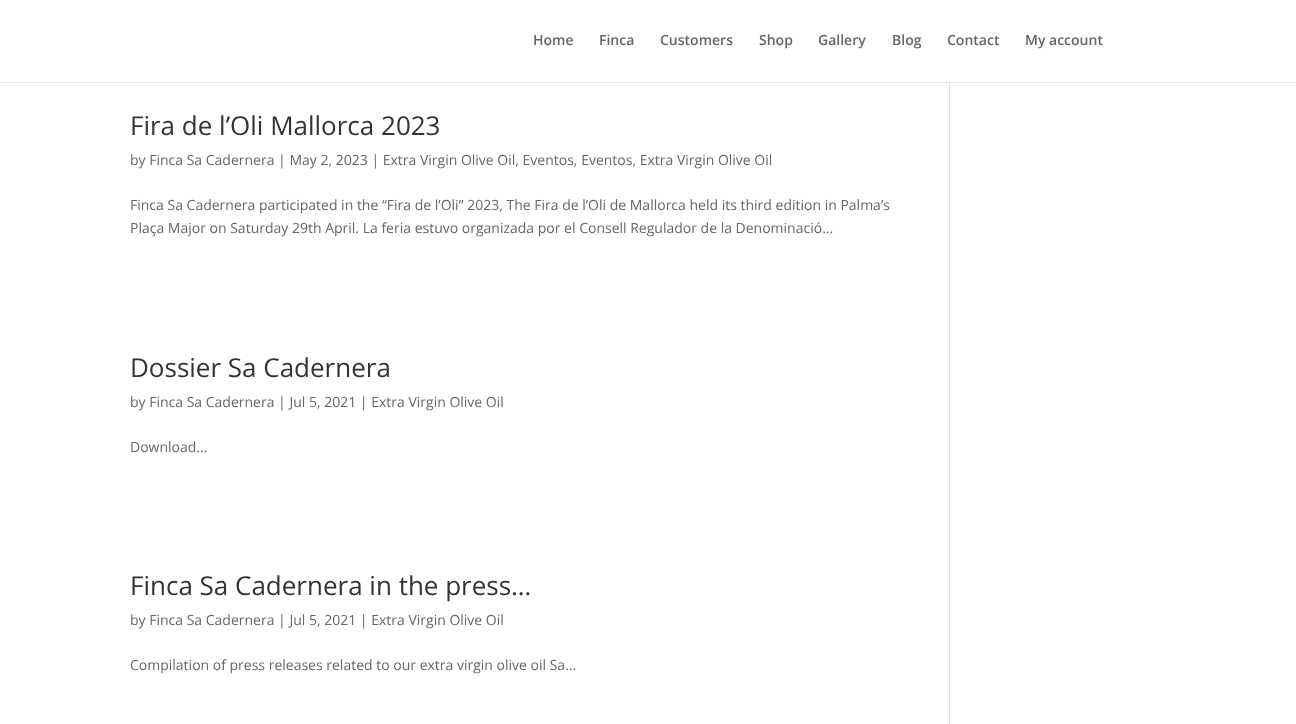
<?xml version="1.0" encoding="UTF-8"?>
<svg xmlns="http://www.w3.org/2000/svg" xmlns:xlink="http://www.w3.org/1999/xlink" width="1296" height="724">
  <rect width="100%" height="100%" fill="#ffffff" />
  <rect y="82" width="1296" height="1" fill="#e6e6e6" />
  <rect x="949" y="83" width="1" height="641" fill="#e2e2e2" />
  <rect x="949" y="82" width="1" height="1" fill="#cbcbcb" />
  <text x="533" y="45" style="font-family: Open Sans; font-size: 14px; font-weight: 600; fill: #666666">Home</text>
  <text x="599" y="45" style="font-family: Open Sans; font-size: 14px; font-weight: 600; fill: #666666">Finca</text>
  <text x="660" y="45" style="font-family: Open Sans; font-size: 14px; font-weight: 600; fill: #666666">Customers</text>
  <text x="759" y="45" style="font-family: Open Sans; font-size: 14px; font-weight: 600; fill: #666666">Shop</text>
  <text x="818" y="45" style="font-family: Open Sans; font-size: 14px; font-weight: 600; fill: #666666">Gallery</text>
  <text x="892" y="45" style="font-family: Open Sans; font-size: 14px; font-weight: 600; fill: #666666">Blog</text>
  <text x="947" y="45" style="font-family: Open Sans; font-size: 14px; font-weight: 600; fill: #666666">Contact</text>
  <text x="1025" y="45" style="font-family: Open Sans; font-size: 14px; font-weight: 600; fill: #666666">My account</text>
  <text x="130" y="135" style="font-family: Open Sans; font-size: 26px; fill: #333333">Fira de l’Oli Mallorca 2023</text>
  <text x="130" y="165" style="font-family: Open Sans; font-size: 14px; fill: #666666">by Finca Sa Cadernera | May 2, 2023 | Extra Virgin Olive Oil, Eventos, Eventos, Extra Virgin Olive Oil</text>
  <text x="130" y="210" style="font-family: Open Sans; font-size: 14px; fill: #666666">Finca Sa Cadernera participated in the “Fira de l’Oli” 2023, The Fira de l’Oli de Mallorca held its third edition in Palma’s</text>
  <text x="130" y="233" style="font-family: Open Sans; font-size: 14px; fill: #666666">Plaça Major on Saturday 29th April. La feria estuvo organizada por el Consell Regulador de la Denominació...</text>
  <text x="130" y="377" style="font-family: Open Sans; font-size: 26px; fill: #333333">Dossier Sa Cadernera</text>
  <text x="130" y="407" style="font-family: Open Sans; font-size: 14px; fill: #666666">by Finca Sa Cadernera | Jul 5, 2021 | Extra Virgin Olive Oil</text>
  <text x="130" y="452" style="font-family: Open Sans; font-size: 14px; fill: #666666">Download...</text>
  <text x="130" y="595" style="font-family: Open Sans; font-size: 26px; fill: #333333">Finca Sa Cadernera in the press…</text>
  <text x="130" y="625" style="font-family: Open Sans; font-size: 14px; fill: #666666">by Finca Sa Cadernera | Jul 5, 2021 | Extra Virgin Olive Oil</text>
  <text x="130" y="670" style="font-family: Open Sans; font-size: 14px; fill: #666666">Compilation of press releases related to our extra virgin olive oil Sa...</text>
</svg>
